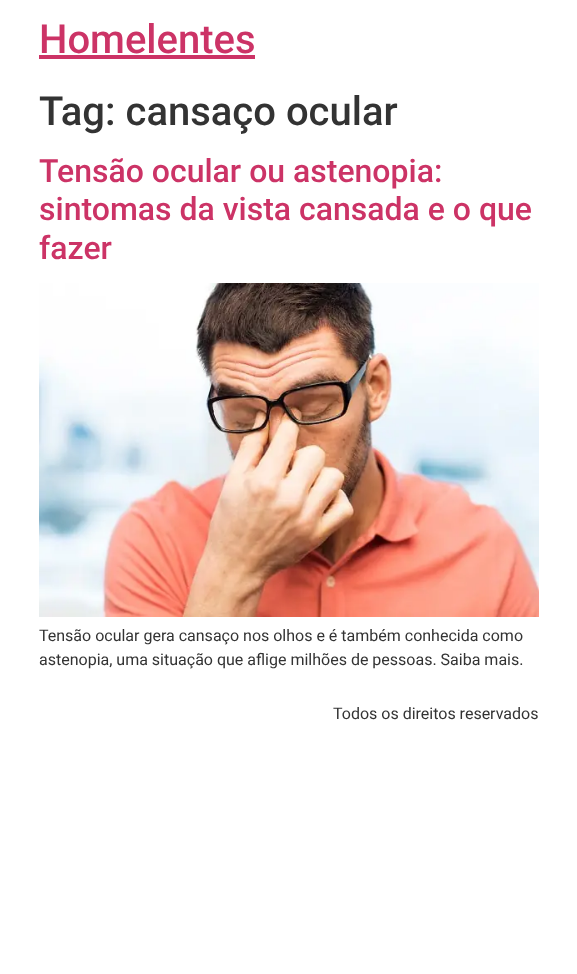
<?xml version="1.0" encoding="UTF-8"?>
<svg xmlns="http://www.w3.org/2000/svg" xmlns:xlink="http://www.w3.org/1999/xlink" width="577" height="974">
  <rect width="100%" height="100%" fill="#ffffff" />
  <rect x="39" y="55" width="216" height="4" fill="#cc3366" />
  <image x="39" y="283" width="500" height="334" xlink:href="image1.png" />
  <text x="39" y="53" style="font-family: Roboto; font-size: 40px; font-weight: 500; fill: #cc3366">Homelentes</text>
  <text x="39" y="125" style="font-family: Roboto; font-size: 40px; font-weight: 500; fill: #333333">Tag: cansaço ocular</text>
  <text x="39" y="182" style="font-family: Roboto; font-size: 32px; font-weight: 500; fill: #cc3366">Tensão ocular ou astenopia:</text>
  <text x="39" y="220" style="font-family: Roboto; font-size: 32px; font-weight: 500; fill: #cc3366">sintomas da vista cansada e o que</text>
  <text x="39" y="259" style="font-family: Roboto; font-size: 32px; font-weight: 500; fill: #cc3366">fazer</text>
  <text x="39" y="641" style="font-family: Roboto; font-size: 16px; fill: #333333">Tensão ocular gera cansaço nos olhos e é também conhecida como</text>
  <text x="39" y="665" style="font-family: Roboto; font-size: 16px; fill: #333333">astenopia, uma situação que aflige milhões de pessoas. Saiba mais.</text>
  <text x="333" y="719" style="font-family: Roboto; font-size: 16px; fill: #333333">Todos os direitos reservados</text>
</svg>
